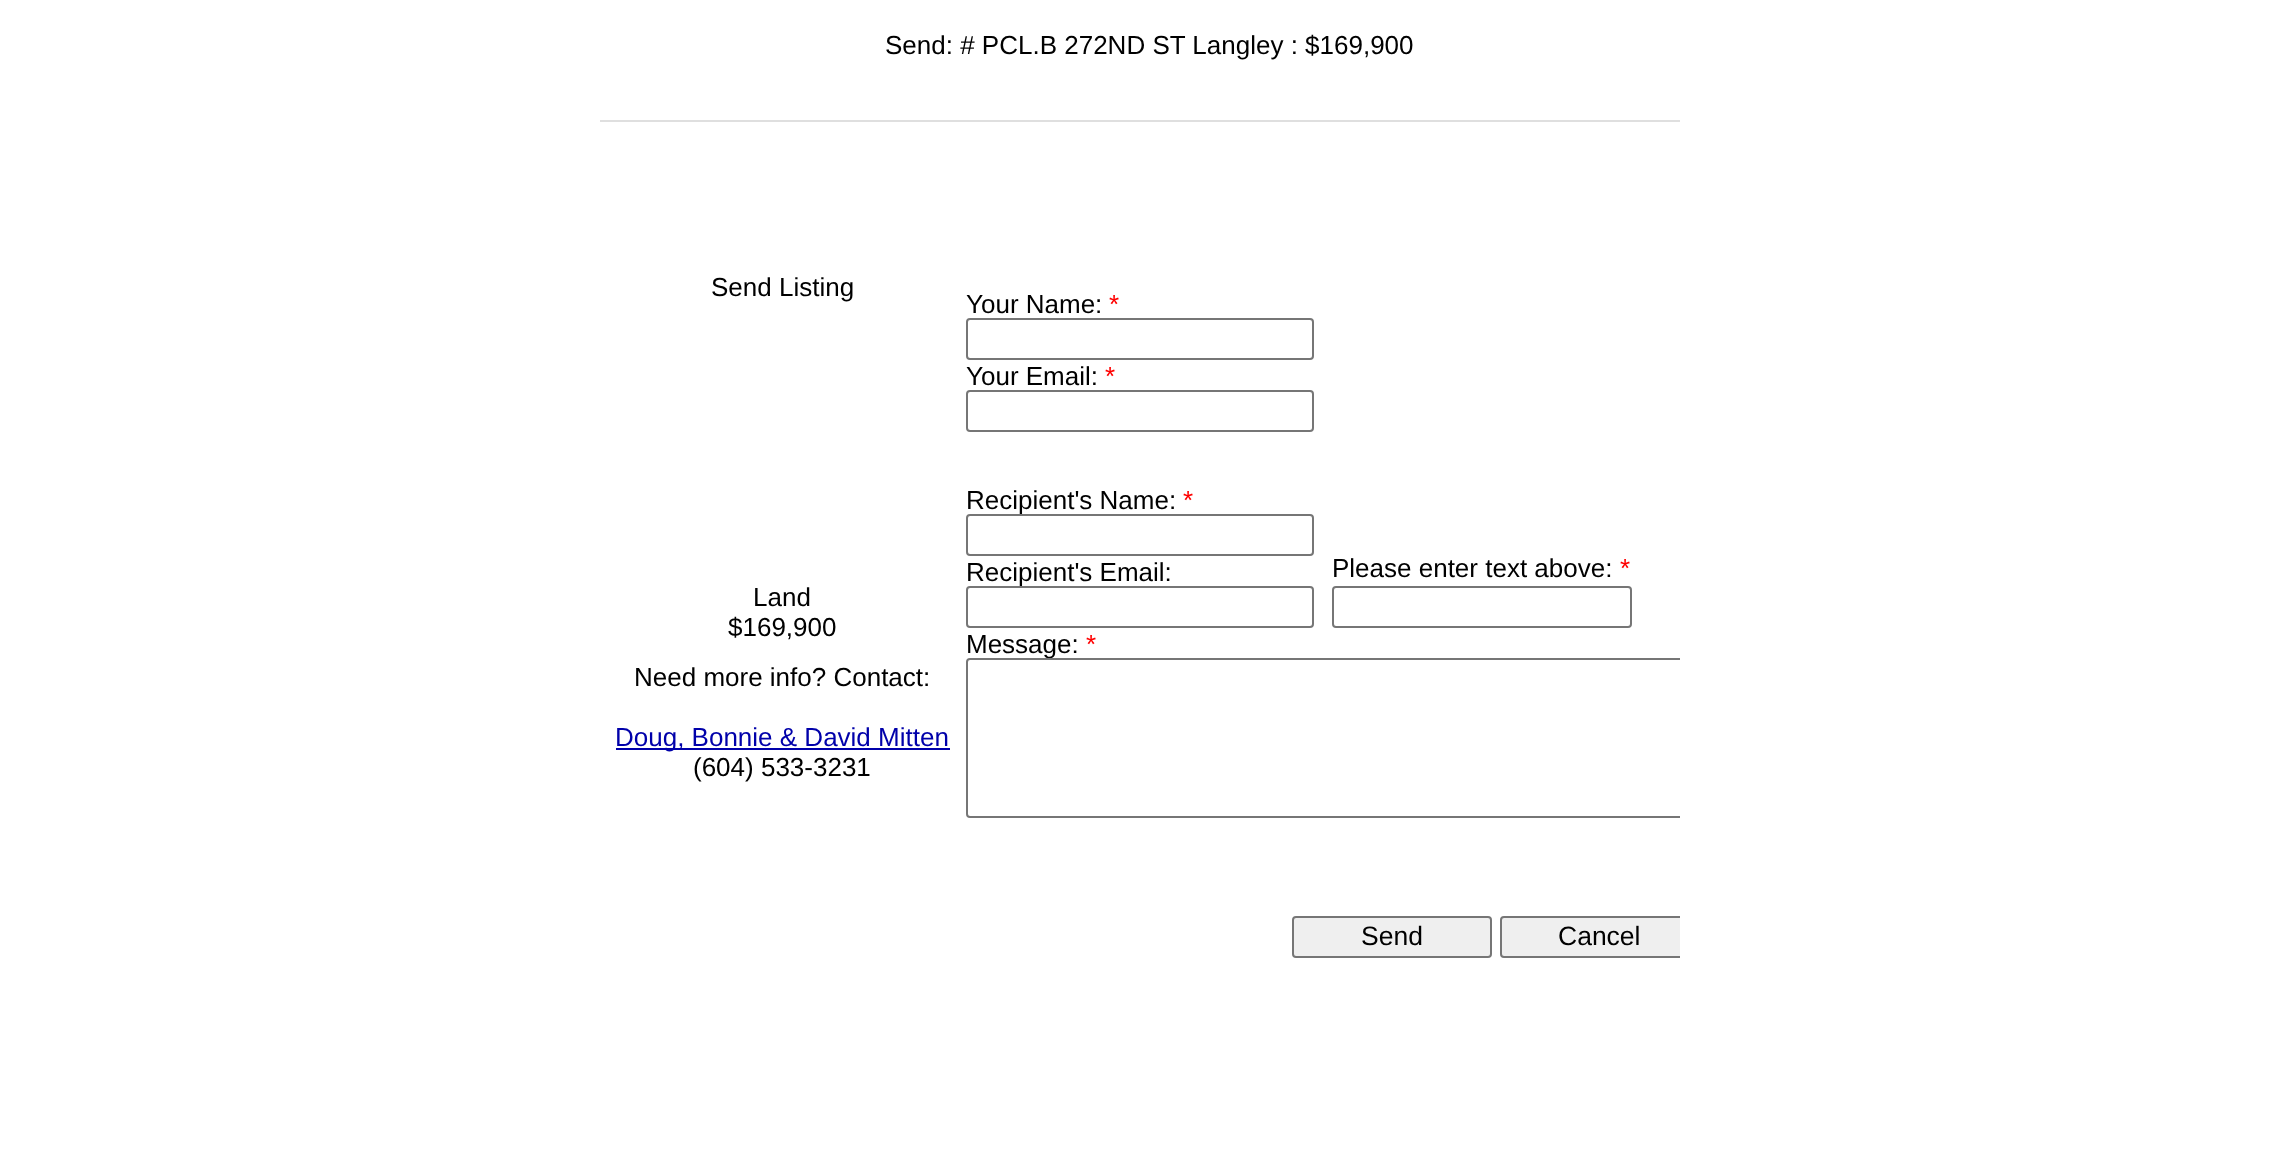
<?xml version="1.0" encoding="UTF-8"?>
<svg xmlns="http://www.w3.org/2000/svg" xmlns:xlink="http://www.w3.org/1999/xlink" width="2278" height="1161">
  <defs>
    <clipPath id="clip1"><rect x="600" width="1080" height="960" /></clipPath>
  </defs>
  <rect width="100%" height="100%" fill="#ffffff" />
  <rect x="600" y="120" width="1080" height="2" fill="#dfdfdf" />
  <rect x="616" y="748" width="334" height="2" fill="#0000aa" />
  <rect x="967" y="319" width="346" height="40" rx="3" fill="none" stroke="#767676" stroke-width="2" />
  <rect x="967" y="391" width="346" height="40" rx="3" fill="none" stroke="#767676" stroke-width="2" />
  <rect x="1333" y="587" width="298" height="40" rx="3" fill="none" stroke="#767676" stroke-width="2" />
  <rect x="1293" y="917" width="198" height="40" rx="3" fill="#efefef" stroke="#767676" stroke-width="2" />
  <path d="M 1504 916 h 176 v 42 h -176 c -2 0 -4 -2 -4 -4 v -34 c 0 -2 2 -4 4 -4 z" fill="#efefef" />
  <g clip-path="url(#clip1)">
    <rect x="1501" y="917" width="198" height="40" rx="3" fill="none" stroke="#767676" stroke-width="2" />
  </g>
  <text x="885" y="54" style="font-family: Liberation Sans; font-size: 26px; fill: #000000">Send: # PCL.B 272ND ST Langley : $169,900</text>
  <text x="711" y="296" style="font-family: Liberation Sans; font-size: 26px; fill: #000000">Send Listing</text>
  <text x="753" y="606" style="font-family: Liberation Sans; font-size: 26px; fill: #000000">Land</text>
  <text x="728" y="636" style="font-family: Liberation Sans; font-size: 26px; fill: #000000">$169,900</text>
  <text x="634" y="686" style="font-family: Liberation Sans; font-size: 26px; fill: #000000">Need more info? Contact:</text>
  <text x="615" y="746" style="font-family: Liberation Sans; font-size: 26px; fill: #0000aa">Doug, Bonnie &amp; David Mitten</text>
  <text x="693" y="776" style="font-family: Liberation Sans; font-size: 26px; fill: #000000">(604) 533-3231</text>
  <text x="966" y="313" style="font-family: Liberation Sans; font-size: 26px; fill: #000000">Your Name:</text>
  <text x="1109" y="313" style="font-family: Liberation Sans; font-size: 26px; fill: #ff0000">*</text>
  <text x="966" y="385" style="font-family: Liberation Sans; font-size: 26px; fill: #000000">Your Email:</text>
  <text x="1105" y="385" style="font-family: Liberation Sans; font-size: 26px; fill: #ff0000">*</text>
  <text x="966" y="509" style="font-family: Liberation Sans; font-size: 26px; fill: #000000">Recipient's Name:</text>
  <text x="1183" y="509" style="font-family: Liberation Sans; font-size: 26px; fill: #ff0000">*</text>
  <rect x="967" y="515" width="346" height="40" rx="3" fill="#ffffff" stroke="#767676" stroke-width="2" />
  <text x="966" y="581" style="font-family: Liberation Sans; font-size: 26px; fill: #000000">Recipient's Email:</text>
  <rect x="967" y="587" width="346" height="40" rx="3" fill="#ffffff" stroke="#767676" stroke-width="2" />
  <text x="1332" y="577" style="font-family: Liberation Sans; font-size: 26px; fill: #000000">Please enter text above:</text>
  <text x="1620" y="577" style="font-family: Liberation Sans; font-size: 26px; fill: #ff0000">*</text>
  <text x="966" y="653" style="font-family: Liberation Sans; font-size: 26px; fill: #000000">Message:</text>
  <text x="1086" y="653" style="font-family: Liberation Sans; font-size: 26px; fill: #ff0000">*</text>
  <path d="M 970 658 h 710 v 160 h -710 c -2 0 -4 -2 -4 -4 v -152 c 0 -2 2 -4 4 -4 z" fill="#ffffff" />
  <g clip-path="url(#clip1)">
    <rect x="967" y="659" width="716" height="158" rx="3" fill="none" stroke="#767676" stroke-width="2" />
  </g>
  <text x="1361" y="945" style="font-family: Liberation Sans; font-size: 26.5px; fill: #000000">Send</text>
  <text x="1558" y="945" style="font-family: Liberation Sans; font-size: 26.5px; fill: #000000">Cancel</text>
</svg>
